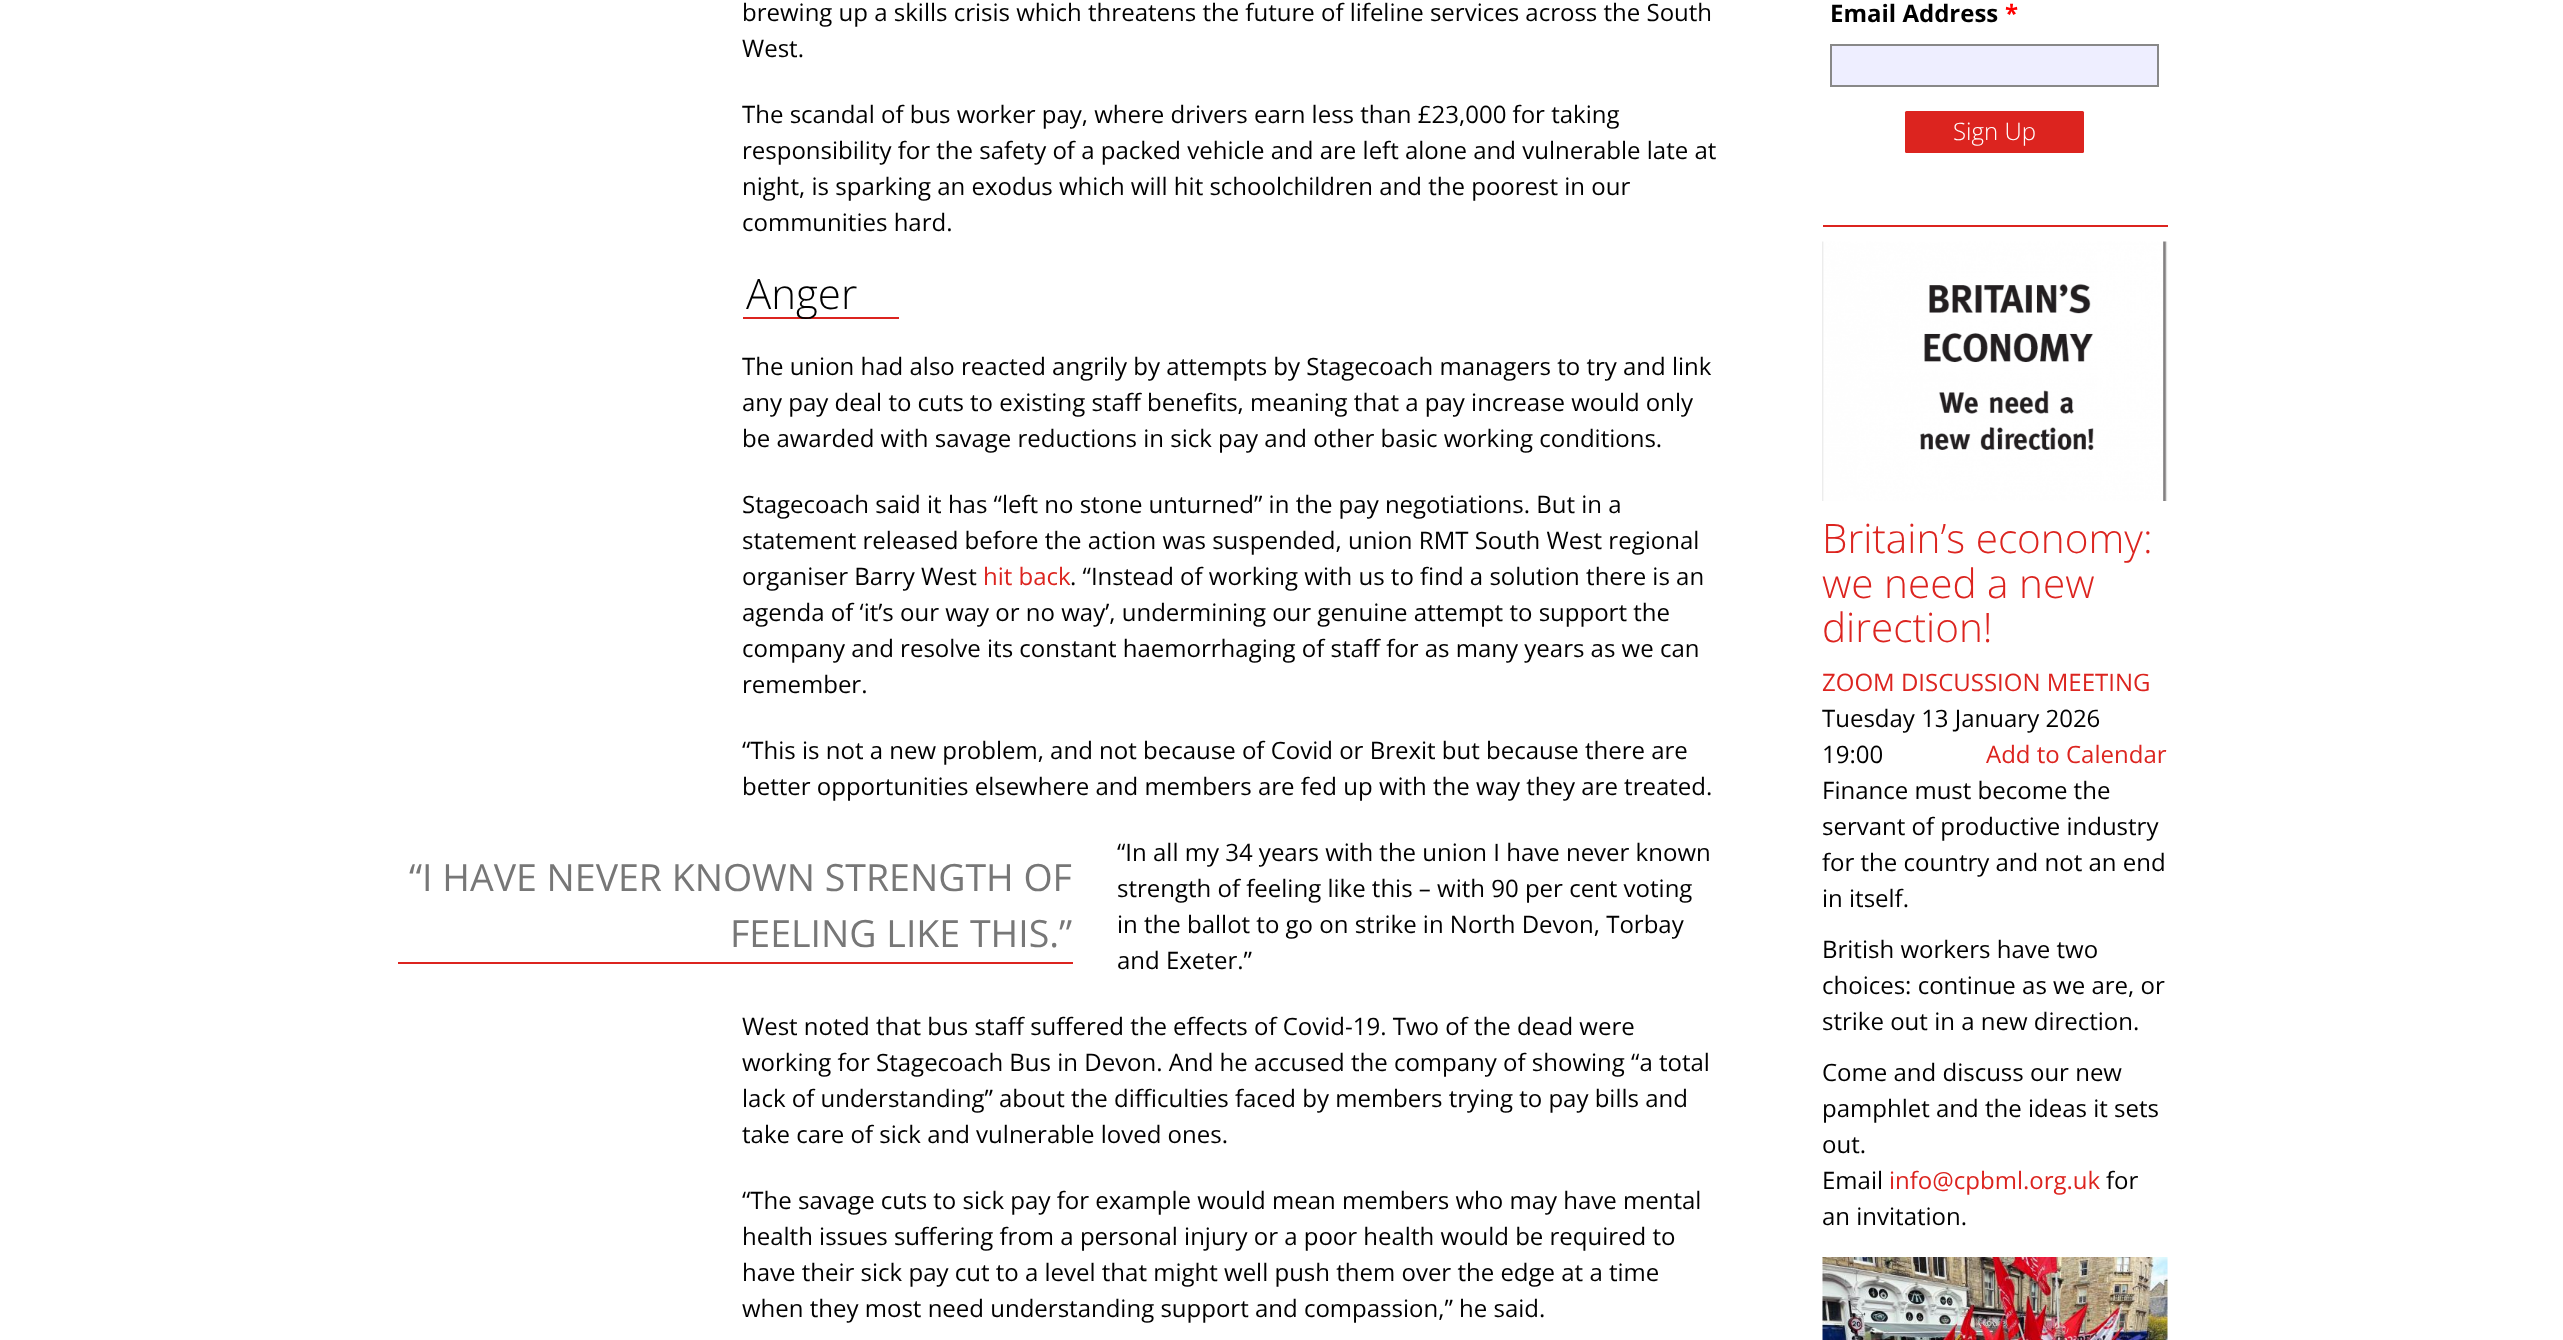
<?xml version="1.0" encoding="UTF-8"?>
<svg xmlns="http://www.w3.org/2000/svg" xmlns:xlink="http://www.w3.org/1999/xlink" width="2563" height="1340">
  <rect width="100%" height="100%" fill="#ffffff" />
  <rect x="743" y="317" width="156" height="2" fill="#dc241f" />
  <rect x="398" y="962" width="675" height="2" fill="#dc241f" />
  <rect x="1831" y="45" width="327" height="41" fill="#eeeeff" stroke="#888888" stroke-width="2" />
  <rect x="1905" y="111" width="179" height="42" rx="1.5" fill="#dc241f" />
  <rect x="1823" y="225" width="345" height="2" fill="#dc241f" />
  <image x="1822" y="241" width="346" height="260" xlink:href="image1.png" />
  <image x="1822" y="1257" width="346" height="83" xlink:href="image2.png" />
  <text x="742" y="21" style="font-family: Open Sans; font-size: 24px; fill: #000000">brewing up a skills crisis which threatens the future of lifeline services across the South</text>
  <text x="742" y="57" style="font-family: Open Sans; font-size: 24px; fill: #000000">West.</text>
  <text x="742" y="123" style="font-family: Open Sans; font-size: 24px; fill: #000000">The scandal of bus worker pay, where drivers earn less than £23,000 for taking</text>
  <text x="742" y="159" style="font-family: Open Sans; font-size: 24px; fill: #000000">responsibility for the safety of a packed vehicle and are left alone and vulnerable late at</text>
  <text x="742" y="195" style="font-family: Open Sans; font-size: 24px; fill: #000000">night, is sparking an exodus which will hit schoolchildren and the poorest in our</text>
  <text x="742" y="231" style="font-family: Open Sans; font-size: 24px; fill: #000000">communities hard.</text>
  <text x="746" y="309" style="font-family: Open Sans; font-size: 42px; font-weight: 300; fill: #000000">Anger</text>
  <text x="742" y="375" style="font-family: Open Sans; font-size: 24px; fill: #000000">The union had also reacted angrily by attempts by Stagecoach managers to try and link</text>
  <text x="742" y="411" style="font-family: Open Sans; font-size: 24px; fill: #000000">any pay deal to cuts to existing staff benefits, meaning that a pay increase would only</text>
  <text x="742" y="447" style="font-family: Open Sans; font-size: 24px; fill: #000000">be awarded with savage reductions in sick pay and other basic working conditions.</text>
  <text x="742" y="513" style="font-family: Open Sans; font-size: 24px; fill: #000000">Stagecoach said it has “left no stone unturned” in the pay negotiations. But in a</text>
  <text x="742" y="549" style="font-family: Open Sans; font-size: 24px; fill: #000000">statement released before the action was suspended, union RMT South West regional</text>
  <text x="742" y="585" style="font-family: Open Sans; font-size: 24px; fill: #000000">organiser Barry West</text>
  <text x="983" y="585" style="font-family: Open Sans; font-size: 24px; fill: #dc241f">hit back</text>
  <text x="1070" y="585" style="font-family: Open Sans; font-size: 24px; fill: #000000">. “Instead of working with us to find a solution there is an</text>
  <text x="742" y="621" style="font-family: Open Sans; font-size: 24px; fill: #000000">agenda of ‘it’s our way or no way’, undermining our genuine attempt to support the</text>
  <text x="742" y="657" style="font-family: Open Sans; font-size: 24px; fill: #000000">company and resolve its constant haemorrhaging of staff for as many years as we can</text>
  <text x="742" y="693" style="font-family: Open Sans; font-size: 24px; fill: #000000">remember.</text>
  <text x="742" y="759" style="font-family: Open Sans; font-size: 24px; fill: #000000">“This is not a new problem, and not because of Covid or Brexit but because there are</text>
  <text x="742" y="795" style="font-family: Open Sans; font-size: 24px; fill: #000000">better opportunities elsewhere and members are fed up with the way they are treated.</text>
  <text x="409" y="891" style="font-family: Open Sans; font-size: 37.5px; fill: #777777">“I HAVE NEVER KNOWN STRENGTH OF</text>
  <text x="730" y="947" style="font-family: Open Sans; font-size: 37.5px; fill: #777777">FEELING LIKE THIS.”</text>
  <text x="1117" y="861" style="font-family: Open Sans; font-size: 24px; fill: #000000">“In all my 34 years with the union I have never known</text>
  <text x="1117" y="897" style="font-family: Open Sans; font-size: 24px; fill: #000000">strength of feeling like this – with 90 per cent voting</text>
  <text x="1117" y="933" style="font-family: Open Sans; font-size: 24px; fill: #000000">in the ballot to go on strike in North Devon, Torbay</text>
  <text x="1117" y="969" style="font-family: Open Sans; font-size: 24px; fill: #000000">and Exeter.”</text>
  <text x="742" y="1035" style="font-family: Open Sans; font-size: 24px; fill: #000000">West noted that bus staff suffered the effects of Covid-19. Two of the dead were</text>
  <text x="742" y="1071" style="font-family: Open Sans; font-size: 24px; fill: #000000">working for Stagecoach Bus in Devon. And he accused the company of showing “a total</text>
  <text x="742" y="1107" style="font-family: Open Sans; font-size: 24px; fill: #000000">lack of understanding” about the difficulties faced by members trying to pay bills and</text>
  <text x="742" y="1143" style="font-family: Open Sans; font-size: 24px; fill: #000000">take care of sick and vulnerable loved ones.</text>
  <text x="742" y="1209" style="font-family: Open Sans; font-size: 24px; fill: #000000">“The savage cuts to sick pay for example would mean members who may have mental</text>
  <text x="742" y="1245" style="font-family: Open Sans; font-size: 24px; fill: #000000">health issues suffering from a personal injury or a poor health would be required to</text>
  <text x="742" y="1281" style="font-family: Open Sans; font-size: 24px; fill: #000000">have their sick pay cut to a level that might well push them over the edge at a time</text>
  <text x="742" y="1317" style="font-family: Open Sans; font-size: 24px; fill: #000000">when they most need understanding support and compassion,” he said.</text>
  <text x="1830" y="22" style="font-family: Open Sans; font-size: 24px; font-weight: bold; fill: #000000">Email Address</text>
  <text x="2005" y="22" style="font-family: Open Sans; font-size: 24px; font-weight: bold; fill: #ff0000">*</text>
  <text x="1953" y="140" style="font-family: Open Sans; font-size: 24px; font-weight: 300; fill: #ffffff">Sign Up</text>
  <text x="1822" y="553" style="font-family: Open Sans; font-size: 40.5px; font-weight: 300; fill: #dc241f">Britain’s economy:</text>
  <text x="1822" y="598" style="font-family: Open Sans; font-size: 40.5px; font-weight: 300; fill: #dc241f">we need a new</text>
  <text x="1822" y="642" style="font-family: Open Sans; font-size: 40.5px; font-weight: 300; fill: #dc241f">direction!</text>
  <text x="1822" y="691" style="font-family: Open Sans; font-size: 24px; fill: #dc241f">ZOOM DISCUSSION MEETING</text>
  <text x="1822" y="727" style="font-family: Open Sans; font-size: 24px; fill: #000000">Tuesday 13 January 2026</text>
  <text x="1822" y="763" style="font-family: Open Sans; font-size: 24px; fill: #000000">19:00</text>
  <text x="1986" y="763" style="font-family: Open Sans; font-size: 24px; fill: #dc241f">Add to Calendar</text>
  <text x="1822" y="799" style="font-family: Open Sans; font-size: 24px; fill: #000000">Finance must become the</text>
  <text x="1822" y="835" style="font-family: Open Sans; font-size: 24px; fill: #000000">servant of productive industry</text>
  <text x="1822" y="871" style="font-family: Open Sans; font-size: 24px; fill: #000000">for the country and not an end</text>
  <text x="1822" y="907" style="font-family: Open Sans; font-size: 24px; fill: #000000">in itself.</text>
  <text x="1822" y="958" style="font-family: Open Sans; font-size: 24px; fill: #000000">British workers have two</text>
  <text x="1822" y="994" style="font-family: Open Sans; font-size: 24px; fill: #000000">choices: continue as we are, or</text>
  <text x="1822" y="1030" style="font-family: Open Sans; font-size: 24px; fill: #000000">strike out in a new direction.</text>
  <text x="1822" y="1081" style="font-family: Open Sans; font-size: 24px; fill: #000000">Come and discuss our new</text>
  <text x="1822" y="1117" style="font-family: Open Sans; font-size: 24px; fill: #000000">pamphlet and the ideas it sets</text>
  <text x="1822" y="1153" style="font-family: Open Sans; font-size: 24px; fill: #000000">out.</text>
  <text x="1822" y="1189" style="font-family: Open Sans; font-size: 24px; fill: #000000">Email</text>
  <text x="1889" y="1189" style="font-family: Open Sans; font-size: 24px; fill: #dc241f">info@cpbml.org.uk</text>
  <text x="2106" y="1189" style="font-family: Open Sans; font-size: 24px; fill: #000000">for</text>
  <text x="1822" y="1225" style="font-family: Open Sans; font-size: 24px; fill: #000000">an invitation.</text>
</svg>
